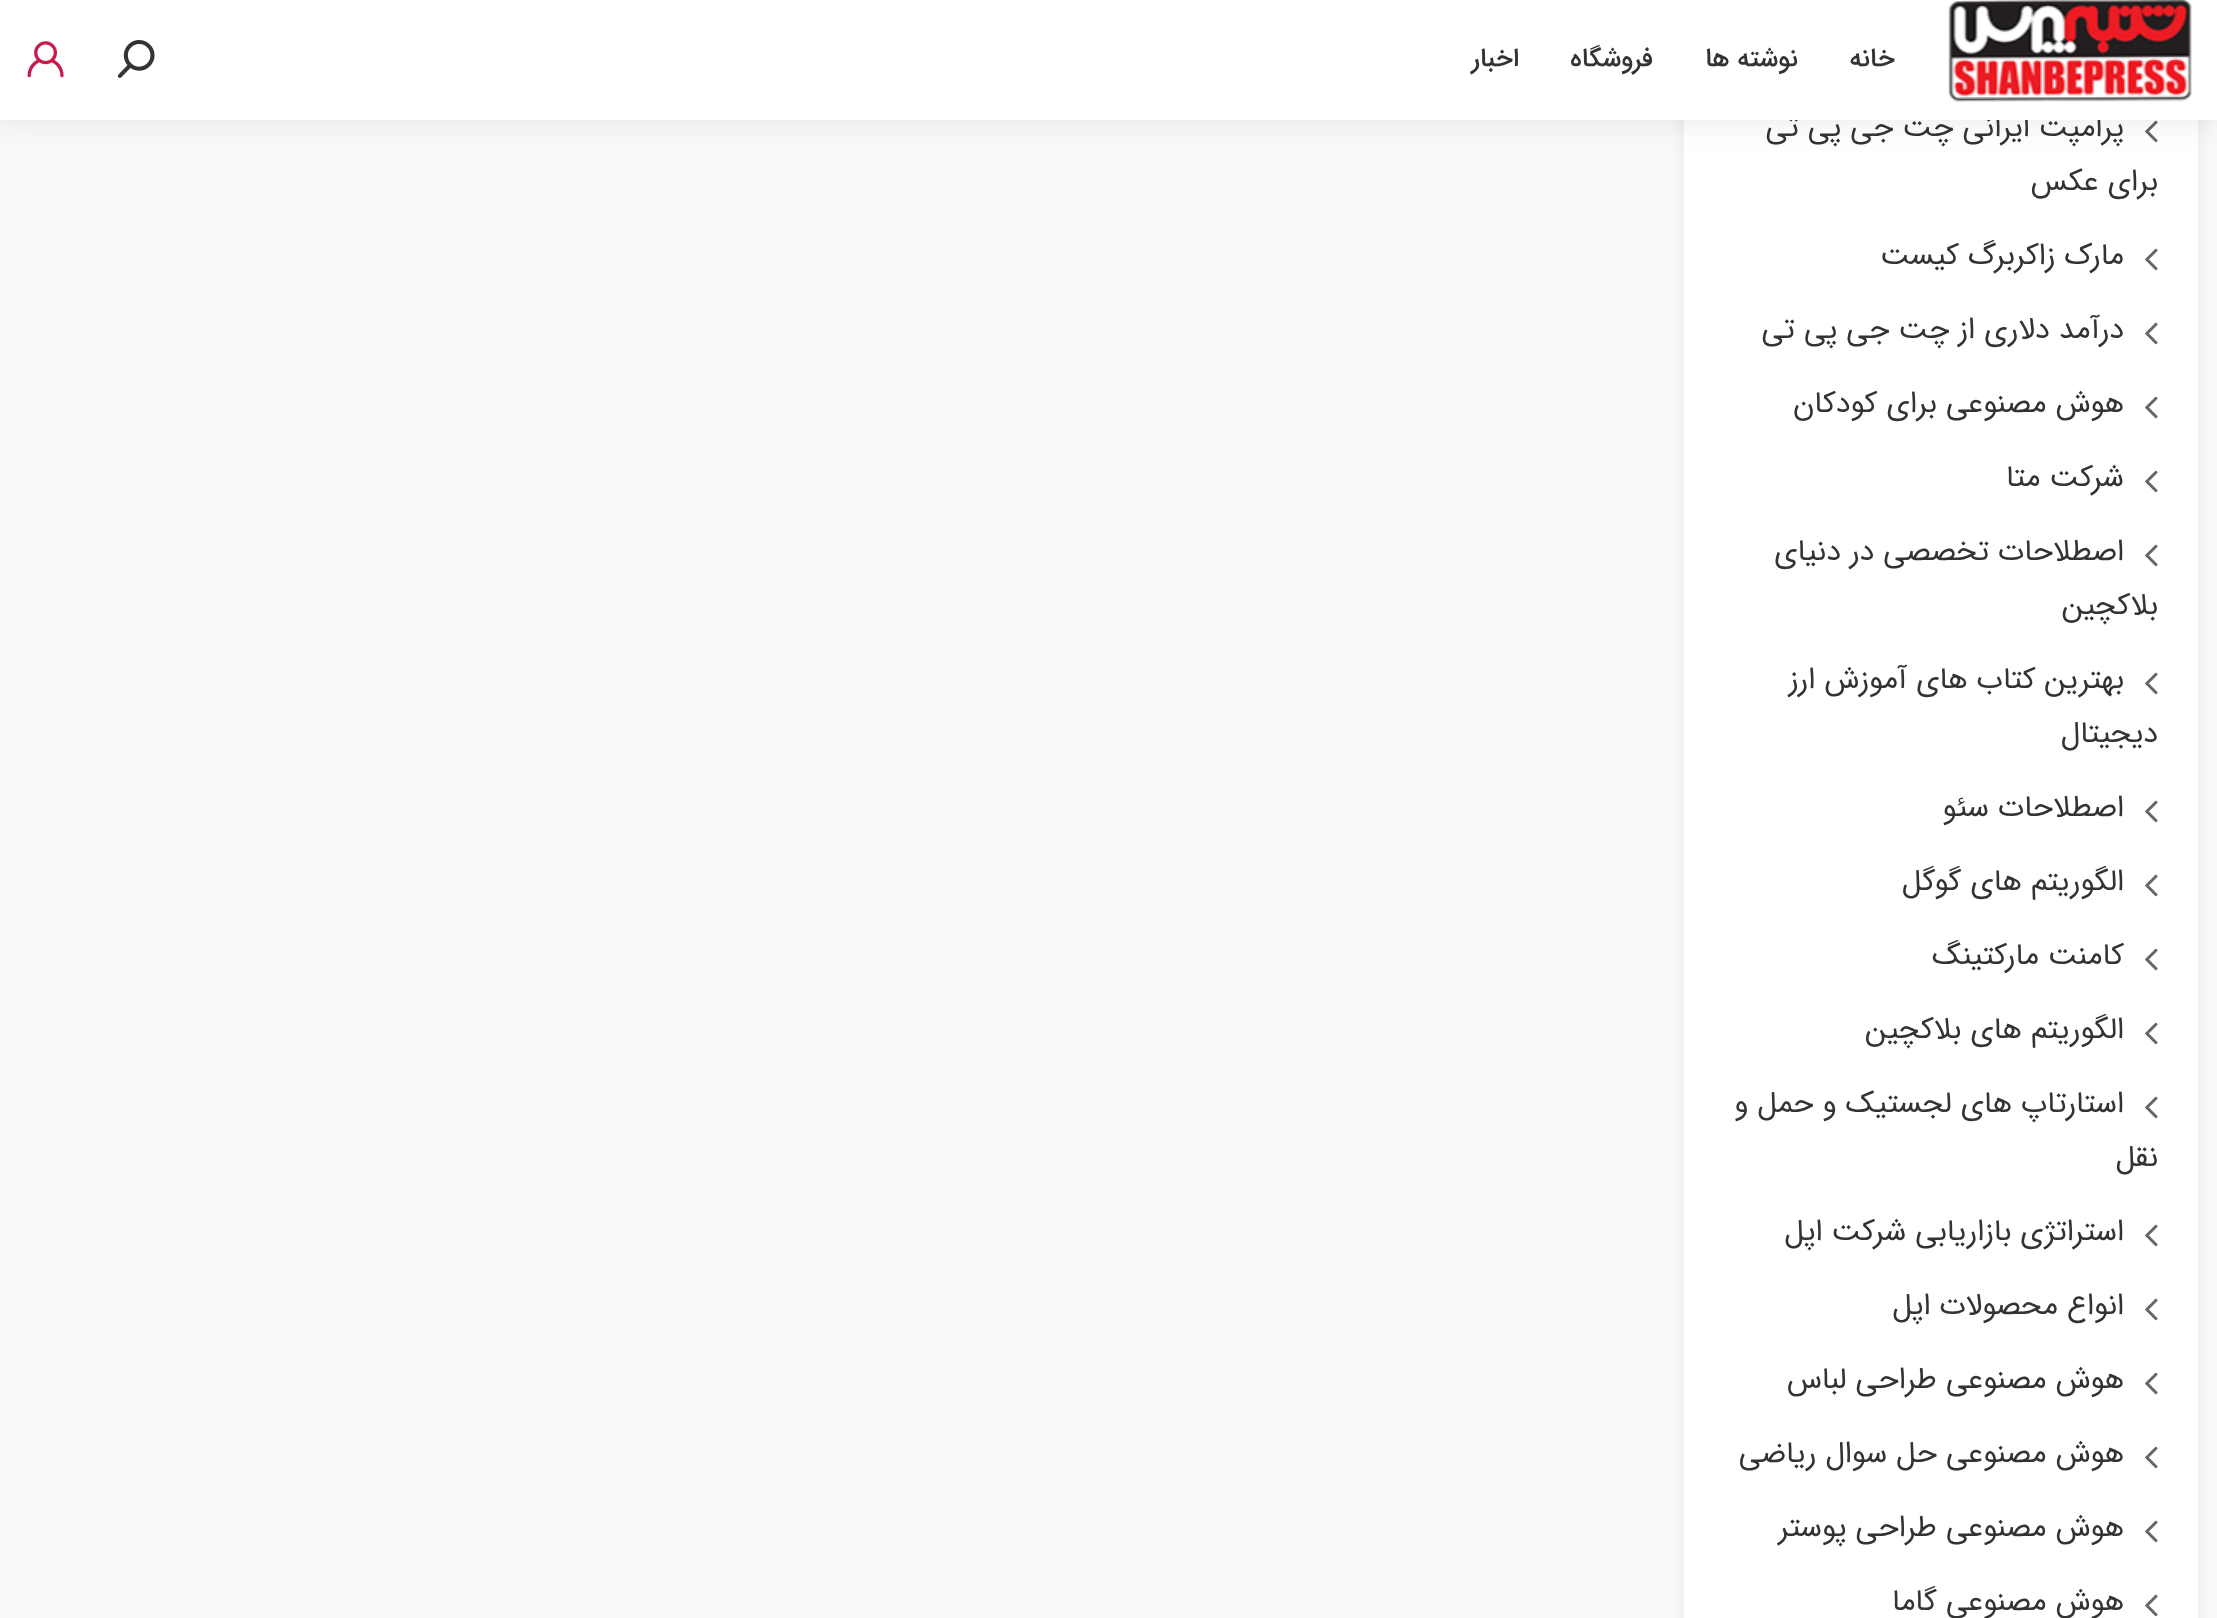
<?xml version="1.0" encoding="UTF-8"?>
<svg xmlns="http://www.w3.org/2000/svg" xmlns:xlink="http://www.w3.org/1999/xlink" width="2217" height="1618">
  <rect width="100%" height="100%" fill="#f8f9fa" />
  <rect x="1680" y="-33" width="522" height="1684" rx="18" fill="#eeeeee" filter="blur(5px)" />
  <rect x="1684" y="120" width="514" height="1498" fill="#ffffff" />
  <image x="2145" y="120" width="13" height="23" xlink:href="image4.png" />
  <rect width="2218" height="120" fill="#001428" fill-opacity="0.1" filter="blur(15px)" />
  <image x="2145" y="248" width="13" height="23" xlink:href="image4.png" />
  <image x="2145" y="322" width="13" height="23" xlink:href="image4.png" />
  <image x="2145" y="396" width="13" height="23" xlink:href="image4.png" />
  <image x="2145" y="470" width="13" height="23" xlink:href="image4.png" />
  <image x="2145" y="544" width="13" height="23" xlink:href="image4.png" />
  <image x="2145" y="672" width="13" height="23" xlink:href="image4.png" />
  <image x="2145" y="800" width="13" height="23" xlink:href="image4.png" />
  <image x="2145" y="874" width="13" height="23" xlink:href="image4.png" />
  <image x="2145" y="948" width="13" height="23" xlink:href="image4.png" />
  <image x="2145" y="1022" width="13" height="23" xlink:href="image4.png" />
  <image x="2145" y="1096" width="13" height="23" xlink:href="image4.png" />
  <image x="2145" y="1224" width="13" height="23" xlink:href="image4.png" />
  <image x="2145" y="1298" width="13" height="23" xlink:href="image4.png" />
  <image x="2145" y="1372" width="13" height="23" xlink:href="image4.png" />
  <image x="2145" y="1446" width="13" height="23" xlink:href="image4.png" />
  <image x="2145" y="1520" width="13" height="23" xlink:href="image4.png" />
  <image x="2145" y="1594" width="13" height="23" xlink:href="image4.png" />
  <text x="2124" y="136" style="font-family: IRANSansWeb; font-size: 30px; direction: rtl; fill: #333333">پرامپت ایرانی چت جی پی تی</text>
  <rect width="2217" height="120" fill="#ffffff" />
  <text x="1519" y="66" style="font-family: IRANSansWeb; font-size: 26px; font-weight: 500; direction: rtl; fill: #333333">اخبار</text>
  <text x="1653" y="66" style="font-family: IRANSansWeb; font-size: 26px; font-weight: 500; direction: rtl; fill: #333333">فروشگاه</text>
  <text x="1798" y="66" style="font-family: IRANSansWeb; font-size: 26px; font-weight: 500; direction: rtl; fill: #333333">نوشته ها</text>
  <text x="1895" y="66" style="font-family: IRANSansWeb; font-size: 26px; font-weight: 500; direction: rtl; fill: #333333">خانه</text>
  <image x="117" y="40" width="38" height="38" xlink:href="image2.png" />
  <image x="27" y="41" width="37" height="37" xlink:href="image3.png" />
  <image x="1948" y="0" width="244" height="102" xlink:href="image1.png" />
  <text x="2158" y="190" style="font-family: IRANSansWeb; font-size: 30px; direction: rtl; fill: #333333">برای عکس</text>
  <text x="2124" y="264" style="font-family: IRANSansWeb; font-size: 30px; direction: rtl; fill: #333333">مارک زاکربرگ کیست</text>
  <text x="2124" y="338" style="font-family: IRANSansWeb; font-size: 30px; direction: rtl; fill: #333333">درآمد دلاری از چت جی پی تی</text>
  <text x="2124" y="412" style="font-family: IRANSansWeb; font-size: 30px; direction: rtl; fill: #333333">هوش مصنوعی برای کودکان</text>
  <text x="2124" y="486" style="font-family: IRANSansWeb; font-size: 30px; direction: rtl; fill: #333333">شرکت متا</text>
  <text x="2124" y="560" style="font-family: IRANSansWeb; font-size: 30px; direction: rtl; fill: #333333">اصطلاحات تخصصی در دنیای</text>
  <text x="2158" y="614" style="font-family: IRANSansWeb; font-size: 30px; direction: rtl; fill: #333333">بلاکچین</text>
  <text x="2124" y="688" style="font-family: IRANSansWeb; font-size: 30px; direction: rtl; fill: #333333">بهترین کتاب های آموزش ارز</text>
  <text x="2158" y="742" style="font-family: IRANSansWeb; font-size: 30px; direction: rtl; fill: #333333">دیجیتال</text>
  <text x="2124" y="816" style="font-family: IRANSansWeb; font-size: 30px; direction: rtl; fill: #333333">اصطلاحات سئو</text>
  <text x="2124" y="890" style="font-family: IRANSansWeb; font-size: 30px; direction: rtl; fill: #333333">الگوریتم های گوگل</text>
  <text x="2124" y="964" style="font-family: IRANSansWeb; font-size: 30px; direction: rtl; fill: #333333">کامنت مارکتینگ</text>
  <text x="2124" y="1038" style="font-family: IRANSansWeb; font-size: 30px; direction: rtl; fill: #333333">الگوریتم های بلاکچین</text>
  <text x="2124" y="1112" style="font-family: IRANSansWeb; font-size: 30px; direction: rtl; fill: #333333">استارتاپ های لجستیک و حمل و</text>
  <text x="2158" y="1166" style="font-family: IRANSansWeb; font-size: 30px; direction: rtl; fill: #333333">نقل</text>
  <text x="2124" y="1240" style="font-family: IRANSansWeb; font-size: 30px; direction: rtl; fill: #333333">استراتژی بازاریابی شرکت اپل</text>
  <text x="2124" y="1314" style="font-family: IRANSansWeb; font-size: 30px; direction: rtl; fill: #333333">انواع محصولات اپل</text>
  <text x="2124" y="1388" style="font-family: IRANSansWeb; font-size: 30px; direction: rtl; fill: #333333">هوش مصنوعی طراحی لباس</text>
  <text x="2124" y="1462" style="font-family: IRANSansWeb; font-size: 30px; direction: rtl; fill: #333333">هوش مصنوعی حل سوال ریاضی</text>
  <text x="2124" y="1536" style="font-family: IRANSansWeb; font-size: 30px; direction: rtl; fill: #333333">هوش مصنوعی طراحی پوستر</text>
  <text x="2124" y="1610" style="font-family: IRANSansWeb; font-size: 30px; direction: rtl; fill: #333333">هوش مصنوعی گاما</text>
</svg>
